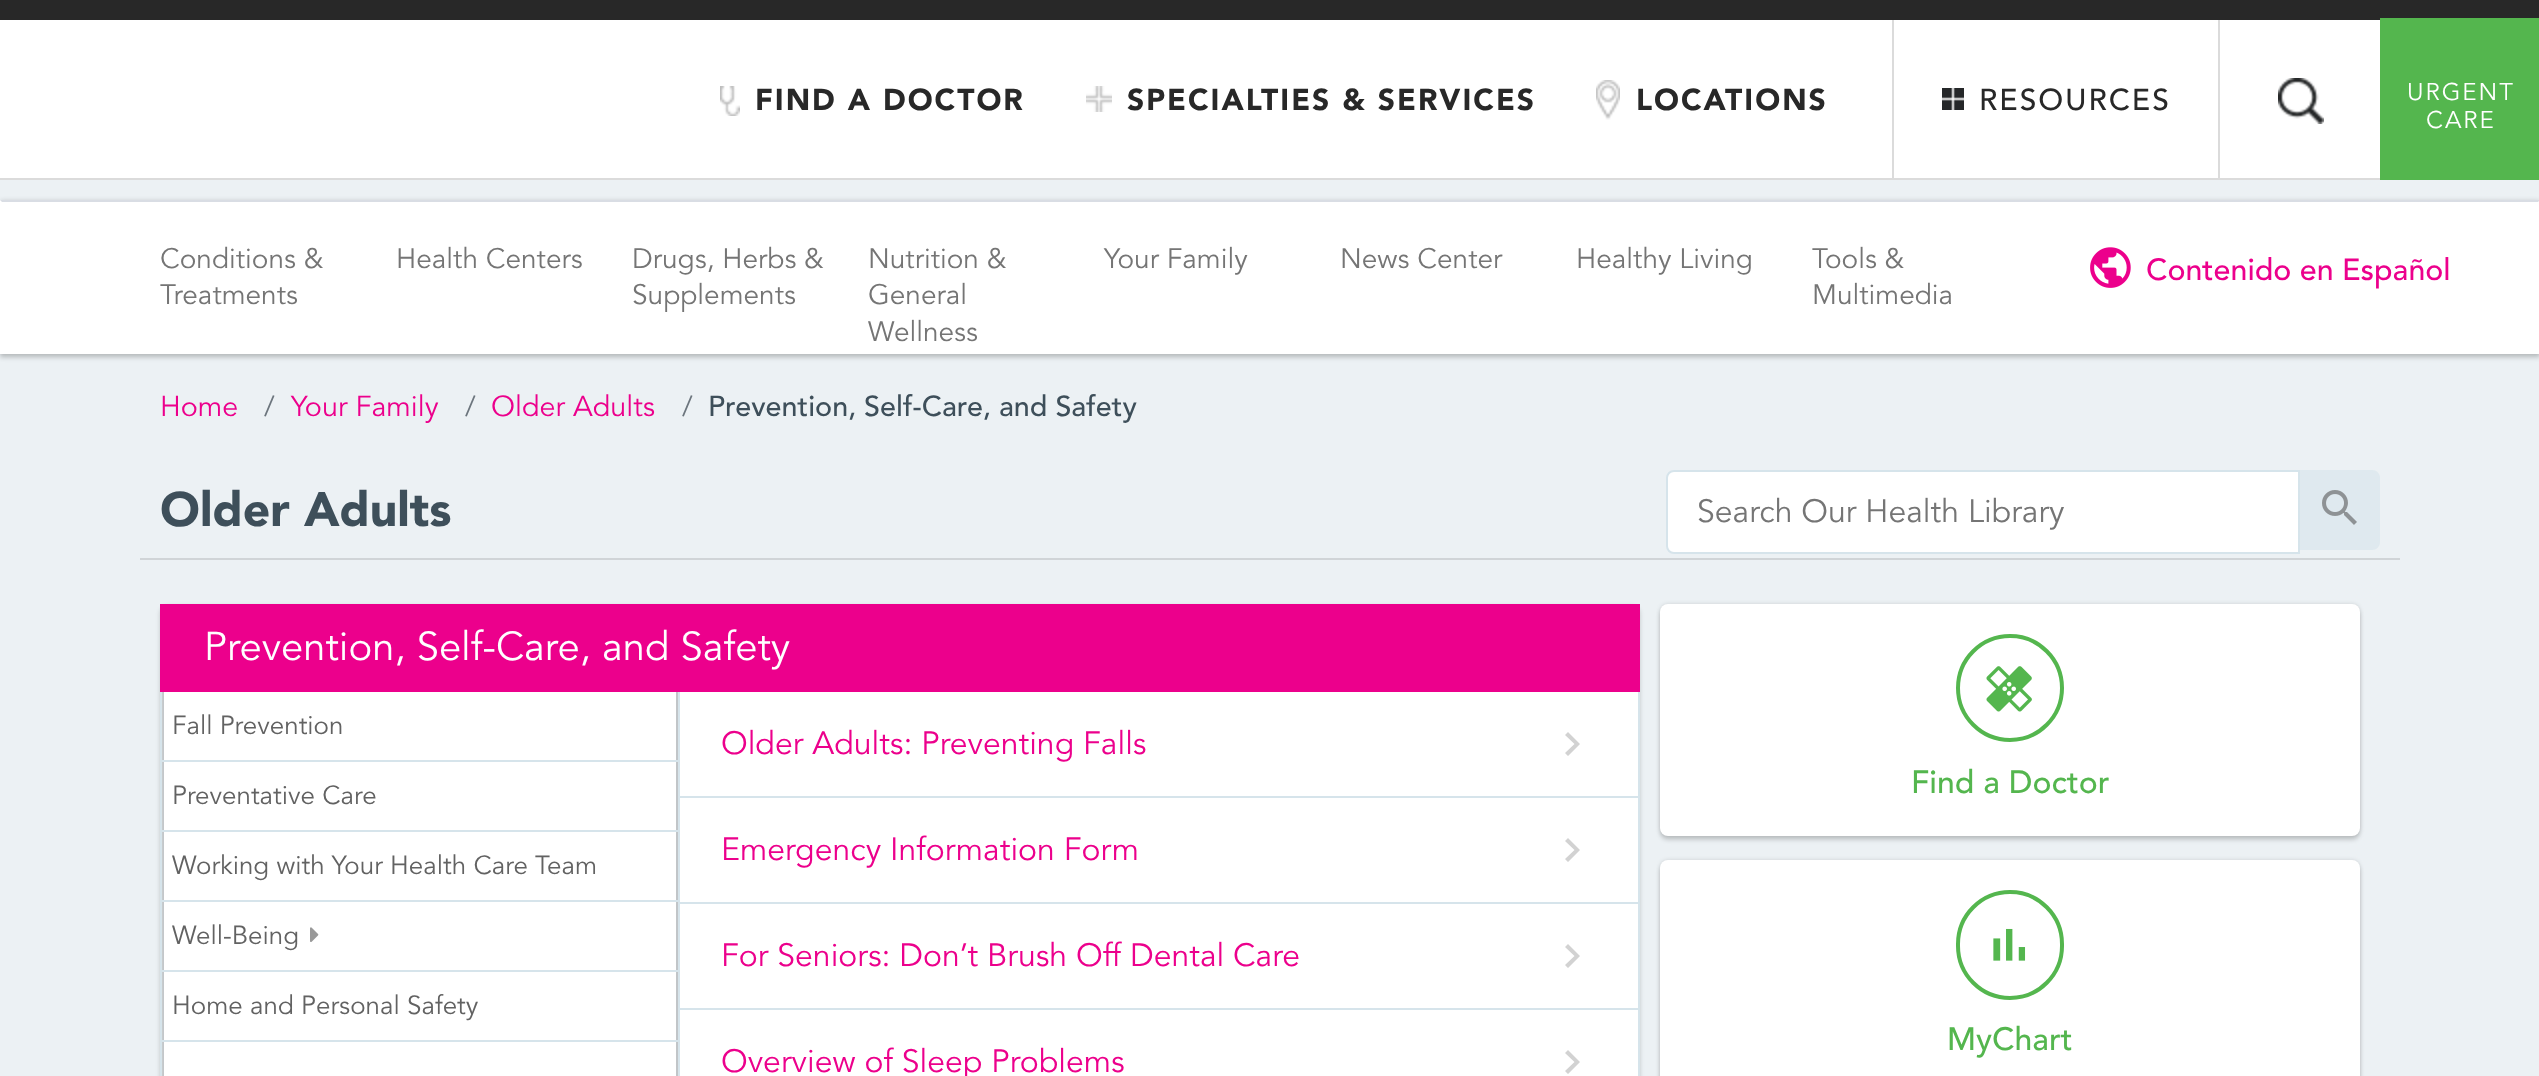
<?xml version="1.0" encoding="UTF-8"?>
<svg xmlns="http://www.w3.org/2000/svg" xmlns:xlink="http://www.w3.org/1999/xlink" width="2539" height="1076">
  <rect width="100%" height="100%" fill="#ecf1f4" />
  <rect width="2539" height="20" fill="#282828" />
  <rect y="20" width="2380" height="158" fill="#ffffff" />
  <rect y="178" width="2380" height="2" fill="#dbdbdb" />
  <image x="720" y="86" width="20" height="30" xlink:href="image1.png" />
  <image x="1086" y="86" width="26" height="26" xlink:href="image2.png" />
  <image x="1596" y="80" width="24" height="40" xlink:href="image3.png" />
  <rect x="2218" y="20" width="2" height="160" fill="#dbdbdb" />
  <rect x="1892" y="20" width="2" height="160" fill="#dbdbdb" />
  <image x="1942" y="88" width="22" height="22" xlink:href="image4.png" />
  <image x="2278" y="78" width="46" height="46" xlink:href="image5.png" />
  <rect x="2380" y="18" width="159" height="162" fill="#54b64e" />
  <rect y="200" width="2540" height="154" fill="#000000" fill-opacity="0.12" filter="blur(2px)" />
  <rect y="204" width="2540" height="154" fill="#000000" fill-opacity="0.16" filter="blur(2px)" />
  <rect y="200" width="2539" height="154" fill="#ffffff" />
  <path d="M 0 200 h 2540 l -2 2 h -2536 z" fill="#d9dde4" />
  <image x="2090" y="247" width="41" height="41" xlink:href="image6.png" />
  <rect x="140" y="558" width="2260" height="2" fill="#d0d4d7" />
  <path d="M 1674 471 h 625 v 82 h -625 c -4 0 -7 -3 -7 -7 v -68 c 0 -4 3 -7 7 -7 z" fill="#ffffff" stroke="#d6e4eb" stroke-width="2" />
  <path d="M 2300 470 h 72 c 4.5 0 8 3.5 8 8 v 64 c 0 4.5 -3.5 8 -8 8 h -72 z" fill="#dfe9ef" />
  <image x="2322" y="490" width="35" height="35" xlink:href="image7.png" />
  <rect x="160" y="606" width="1480" height="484" rx="8" fill="#000000" fill-opacity="0.18" filter="blur(2px)" />
  <rect x="160" y="604" width="1480" height="88" fill="#ec008c" />
  <rect x="164" y="692" width="512" height="384" fill="#ffffff" />
  <rect x="160" y="692" width="2" height="384" fill="#d6e4eb" />
  <rect x="162" y="760" width="516" height="2" fill="#d6e4eb" />
  <rect x="162" y="830" width="516" height="2" fill="#d6e4eb" />
  <rect x="162" y="900" width="516" height="2" fill="#d6e4eb" />
  <rect x="162" y="970" width="516" height="2" fill="#d6e4eb" />
  <image x="310" y="927" width="9" height="15" xlink:href="image8.png" />
  <rect x="162" y="1040" width="516" height="2" fill="#d6e4eb" />
  <rect x="680" y="692" width="958" height="384" fill="#ffffff" />
  <rect x="1638" y="692" width="2" height="384" fill="#d6e4eb" />
  <rect x="678" y="692" width="2" height="384" fill="#d6e4eb" />
  <rect x="680" y="796" width="958" height="2" fill="#d6e4eb" />
  <path d="M 1568 732 l 12 12 l -12 12 l -3 -3 l 9.5 -9 l -9.5 -9 z" fill="#d2d2d2" />
  <rect x="680" y="902" width="958" height="2" fill="#d6e4eb" />
  <path d="M 1568 838 l 12 12 l -12 12 l -3 -3 l 9.5 -9 l -9.5 -9 z" fill="#d2d2d2" />
  <rect x="680" y="1008" width="958" height="2" fill="#d6e4eb" />
  <path d="M 1568 944 l 12 12 l -12 12 l -3 -3 l 9.5 -9 l -9.5 -9 z" fill="#d2d2d2" />
  <path d="M 1568 1050 l 12 12 l -12 12 l -3 -3 l 9.5 -9 l -9.5 -9 z" fill="#d2d2d2" />
  <rect x="1660" y="604" width="700" height="232" rx="8" fill="#000000" fill-opacity="0.12" filter="blur(2px)" />
  <rect x="1660" y="608" width="700" height="232" rx="8" fill="#000000" fill-opacity="0.16" filter="blur(2px)" />
  <rect x="1660" y="604" width="700" height="232" rx="8" fill="#ffffff" />
  <circle cx="2010" cy="688" r="52" fill="none" stroke="#54b64e" stroke-width="4" />
  <image x="1986" y="666" width="46" height="46" xlink:href="image9.png" />
  <rect x="1660" y="860" width="700" height="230" rx="8" fill="#000000" fill-opacity="0.12" filter="blur(2px)" />
  <rect x="1660" y="864" width="700" height="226" rx="8" fill="#000000" fill-opacity="0.16" filter="blur(2px)" />
  <rect x="1660" y="860" width="700" height="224" rx="8" fill="#ffffff" />
  <rect x="1958" y="892" width="104" height="106" rx="52" fill="none" stroke="#54b64e" stroke-width="4" />
  <image x="1993" y="928" width="33" height="33" xlink:href="image10.png" />
  <text x="755" y="110" style="font-family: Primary; font-size: 30px; font-weight: 900; letter-spacing: 2px; fill: #282828">FIND A DOCTOR</text>
  <text x="1127" y="110" style="font-family: Primary; font-size: 30px; font-weight: 900; letter-spacing: 2px; fill: #282828">SPECIALTIES &amp; SERVICES</text>
  <text x="1636" y="110" style="font-family: Primary; font-size: 30px; font-weight: 900; letter-spacing: 2px; fill: #282828">LOCATIONS</text>
  <text x="1979" y="110" style="font-family: Primary; font-size: 30px; font-weight: 500; letter-spacing: 2px; fill: #282828">RESOURCES</text>
  <text x="2407" y="100" style="font-family: Primary; font-size: 24px; letter-spacing: 2px; fill: #ffffff">URGENT</text>
  <text x="2426" y="128" style="font-family: Primary; font-size: 24px; letter-spacing: 2px; fill: #ffffff">CARE</text>
  <text x="160" y="268" style="font-family: Primary; font-size: 28px; fill: #757575">Conditions &amp;</text>
  <text x="160" y="304" style="font-family: Primary; font-size: 28px; fill: #757575">Treatments</text>
  <text x="396" y="268" style="font-family: Primary; font-size: 28px; fill: #757575">Health Centers</text>
  <text x="632" y="268" style="font-family: Primary; font-size: 28px; fill: #757575">Drugs, Herbs &amp;</text>
  <text x="632" y="304" style="font-family: Primary; font-size: 28px; fill: #757575">Supplements</text>
  <text x="868" y="268" style="font-family: Primary; font-size: 28px; fill: #757575">Nutrition &amp;</text>
  <text x="868" y="304" style="font-family: Primary; font-size: 28px; fill: #757575">General</text>
  <text x="868" y="341" style="font-family: Primary; font-size: 28px; fill: #757575">Wellness</text>
  <text x="1104" y="268" style="font-family: Primary; font-size: 28px; fill: #757575">Your Family</text>
  <text x="1340" y="268" style="font-family: Primary; font-size: 28px; fill: #757575">News Center</text>
  <text x="1576" y="268" style="font-family: Primary; font-size: 28px; fill: #757575">Healthy Living</text>
  <text x="1812" y="268" style="font-family: Primary; font-size: 28px; fill: #757575">Tools &amp;</text>
  <text x="1812" y="304" style="font-family: Primary; font-size: 28px; fill: #757575">Multimedia</text>
  <text x="2146" y="280" style="font-family: Primary; font-size: 30.4px; font-weight: 500; fill: #ec008c">Contenido en Español</text>
  <text x="160" y="416" style="font-family: Primary; font-size: 28.75px; fill: #ec008c">Home</text>
  <text x="264" y="416" style="font-family: Primary; font-size: 28.75px; fill: #6c757d">/</text>
  <text x="291" y="416" style="font-family: Primary; font-size: 28.75px; fill: #ec008c">Your Family</text>
  <text x="465" y="416" style="font-family: Primary; font-size: 28.75px; fill: #6c757d">/</text>
  <text x="491" y="416" style="font-family: Primary; font-size: 28.75px; fill: #ec008c">Older Adults</text>
  <text x="682" y="416" style="font-family: Primary; font-size: 28.75px; fill: #6c757d">/</text>
  <text x="708" y="416" style="font-family: Primary; font-size: 28.75px; font-weight: 500; fill: #3e4f5a">Prevention, Self-Care, and Safety</text>
  <text x="160" y="526" style="font-family: Primary; font-size: 48px; font-weight: 900; fill: #3e4f5a">Older Adults</text>
  <text x="1697" y="522" style="font-family: Primary; font-size: 32px; fill: #757575">Search Our Health Library</text>
  <text x="204" y="660" style="font-family: Primary; font-size: 40px; fill: #ffffff">Prevention, Self-Care, and Safety</text>
  <text x="172" y="734" style="font-family: Primary; font-size: 26px; fill: #626262">Fall Prevention</text>
  <text x="172" y="804" style="font-family: Primary; font-size: 26px; fill: #626262">Preventative Care</text>
  <text x="172" y="874" style="font-family: Primary; font-size: 26px; fill: #626262">Working with Your Health Care Team</text>
  <text x="172" y="944" style="font-family: Primary; font-size: 26px; fill: #626262">Well-Being</text>
  <text x="172" y="1014" style="font-family: Primary; font-size: 26px; fill: #626262">Home and Personal Safety</text>
  <text x="721" y="754" style="font-family: Primary; font-size: 32px; fill: #ec008c">Older Adults: Preventing Falls</text>
  <text x="721" y="860" style="font-family: Primary; font-size: 32px; fill: #ec008c">Emergency Information Form</text>
  <text x="721" y="966" style="font-family: Primary; font-size: 32px; fill: #ec008c">For Seniors: Don’t Brush Off Dental Care</text>
  <text x="721" y="1072" style="font-family: Primary; font-size: 32px; fill: #ec008c">Overview of Sleep Problems</text>
  <text x="1911" y="793" style="font-family: Primary; font-size: 32px; font-weight: 500; fill: #54b64e">Find a Doctor</text>
  <text x="1947" y="1050" style="font-family: Primary; font-size: 32px; font-weight: 500; fill: #54b64e">MyChart</text>
</svg>
